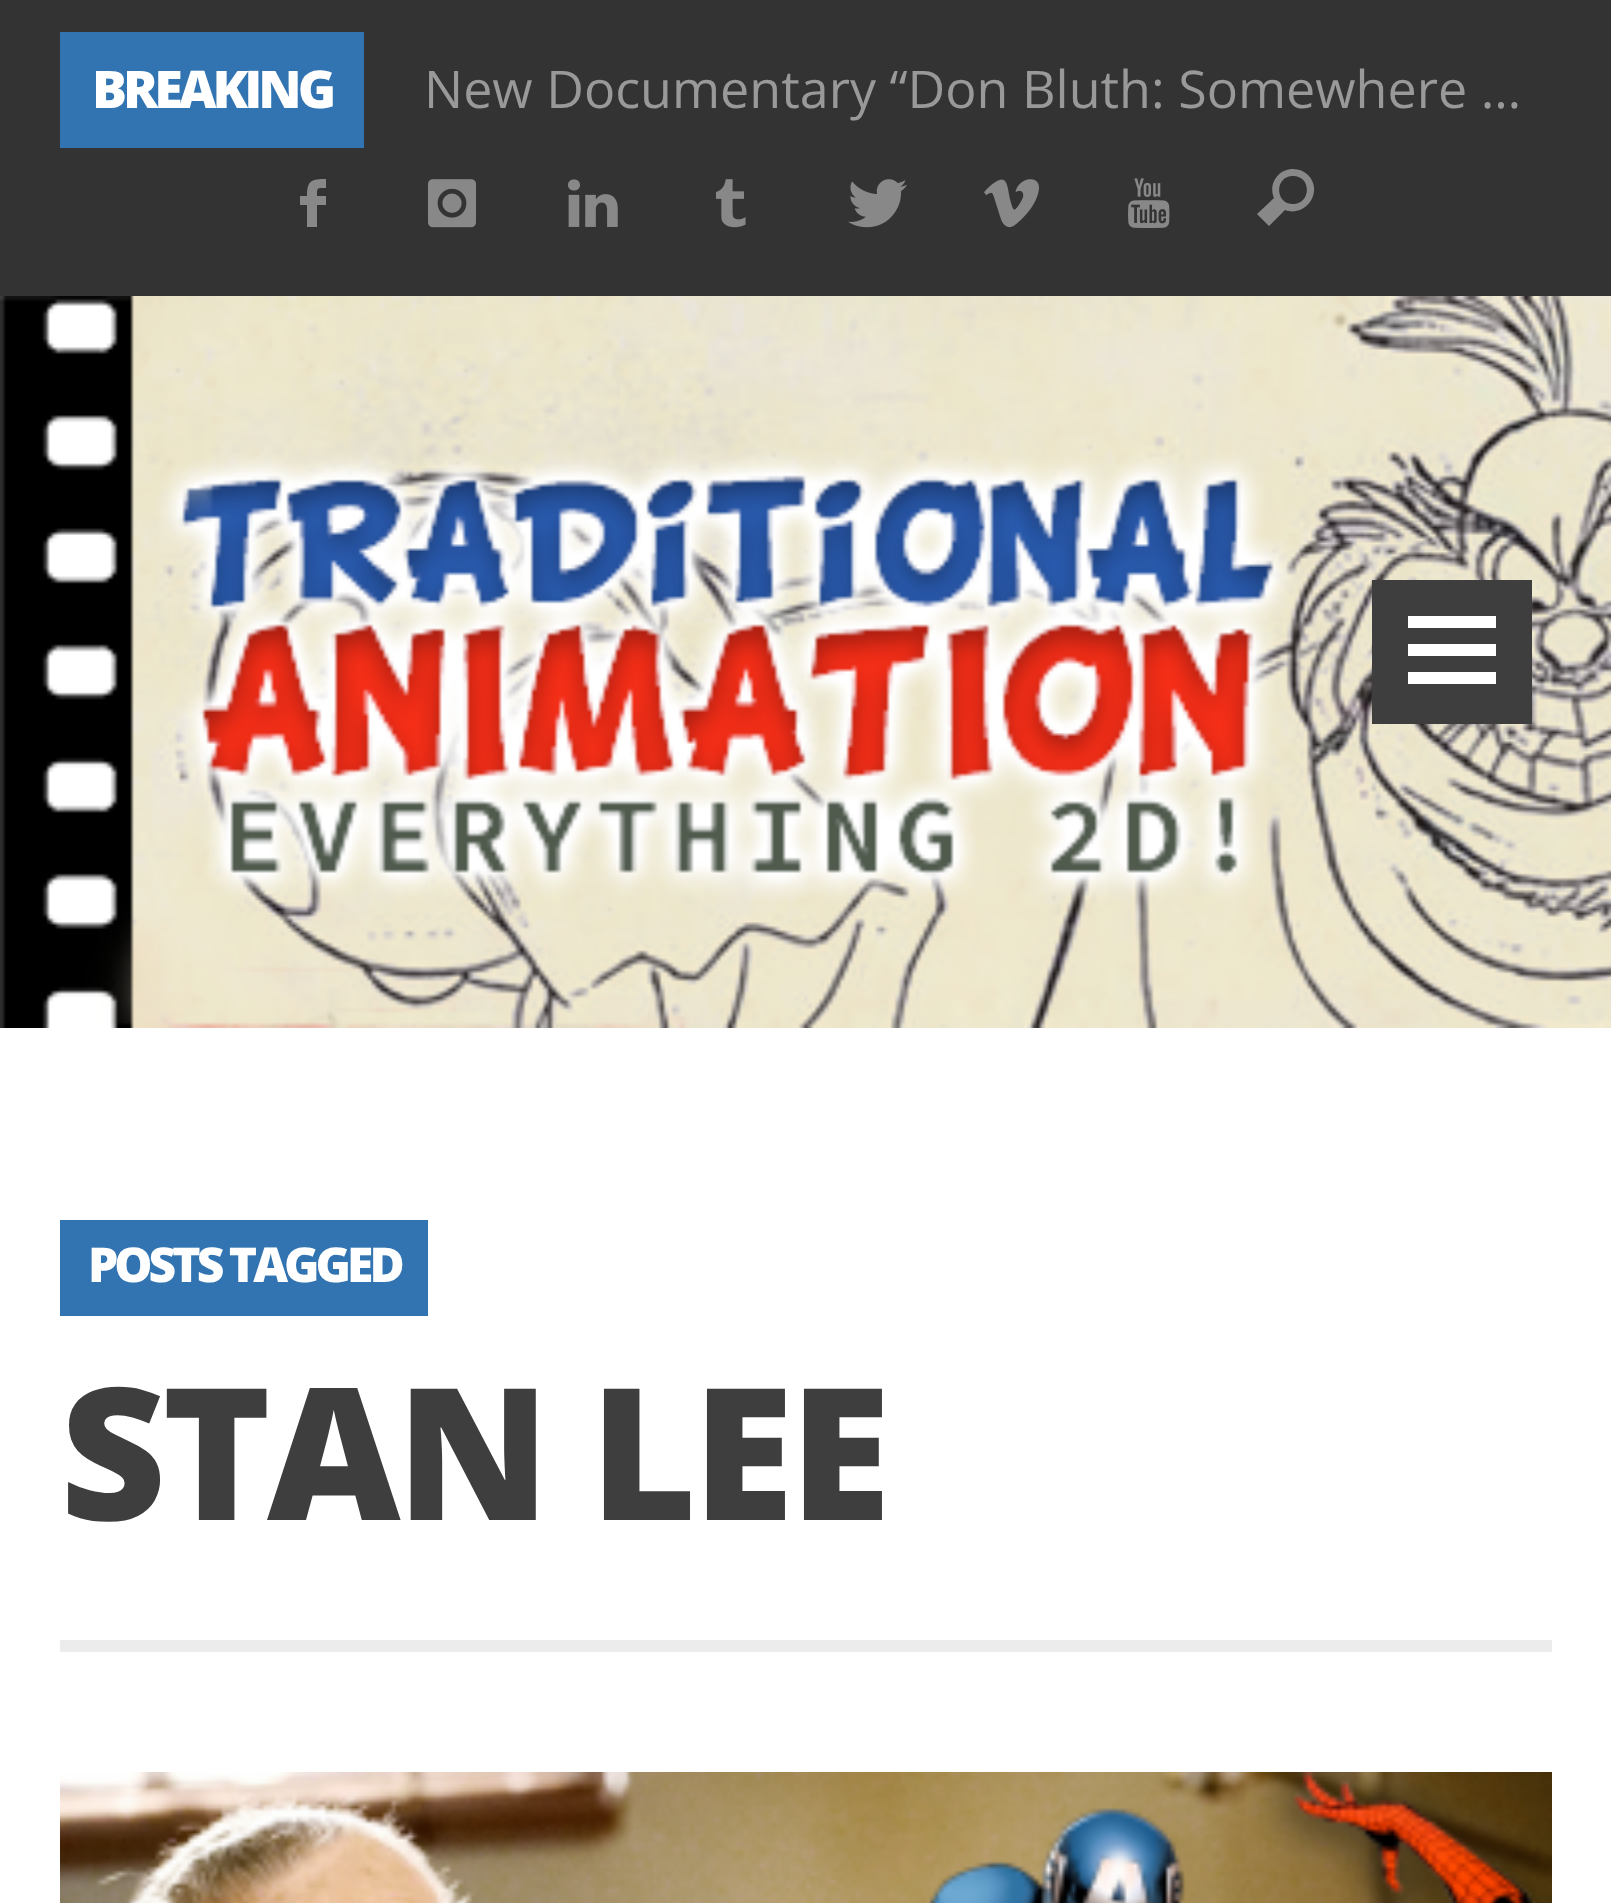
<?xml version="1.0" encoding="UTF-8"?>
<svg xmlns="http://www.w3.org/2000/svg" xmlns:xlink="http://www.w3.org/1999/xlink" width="1611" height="1903">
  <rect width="100%" height="100%" fill="#ffffff" />
  <rect width="1611" height="296" fill="#333333" />
  <rect x="60" y="32" width="304" height="116" fill="#3274b1" />
  <path d="M 300 205 v -9 h 7 c 0 -16 5 -17 19 -17 v 9 c -9 0 -9 -1 -9 8 h 9 v 9 h -9 v 22 h -10 v -22 z" fill="#888888" />
  <image x="428" y="179" width="48" height="49" xlink:href="image1.png" />
  <image x="568" y="179" width="50" height="48" xlink:href="image2.png" />
  <image x="716" y="179" width="30" height="49" xlink:href="image3.png" />
  <image x="848" y="179" width="59" height="49" xlink:href="image4.png" />
  <image x="984" y="179" width="55" height="49" xlink:href="image5.png" />
  <image x="1128" y="178" width="42" height="50" xlink:href="image6.png" />
  <path d="M 1277 204 l 2 2 l -10 10 l -2 -2 z m 16 -35 c 6 0 11 2 15 6 c 16 16 -2 43 -23 35 l -16 16 l -12 -12 l 17 -16 c -6 -14 4 -29 19 -29 z m 0 35 c 18 0 19 -28 0 -28 c -19 0 -18 29 0 28 z" fill="#888888" />
  <image x="0" y="296" width="1611" height="732" xlink:href="image7.png" />
  <rect x="1372" y="580" width="160" height="144" fill="#3e3e3e" />
  <rect x="1408" y="616" width="88" height="12" fill="#ffffff" />
  <rect x="1408" y="644" width="88" height="12" fill="#ffffff" />
  <rect x="1408" y="672" width="88" height="12" fill="#ffffff" />
  <rect x="60" y="1640" width="1492" height="12" fill="#ececec" />
  <rect x="60" y="1220" width="368" height="96" fill="#3274b1" />
  <image x="60" y="1772" width="1492" height="131" xlink:href="image8.png" />
  <text x="92" y="108" style="font-family: Open Sans; font-size: 52px; font-weight: 800; letter-spacing: -4px; fill: #ffffff">BREAKING</text>
  <text x="424" y="108" style="font-family: Open Sans; font-size: 52px; fill: #999999">New Documentary “Don Bluth: Somewhere …</text>
  <text x="88" y="1282" style="font-family: Open Sans; font-size: 48px; font-weight: 800; letter-spacing: -4px; fill: #ffffff">POSTS TAGGED</text>
  <text x="60" y="1520" style="font-family: Open Sans; font-size: 184px; font-weight: 800; letter-spacing: -4px; fill: #3e3e3e">STAN LEE</text>
</svg>
